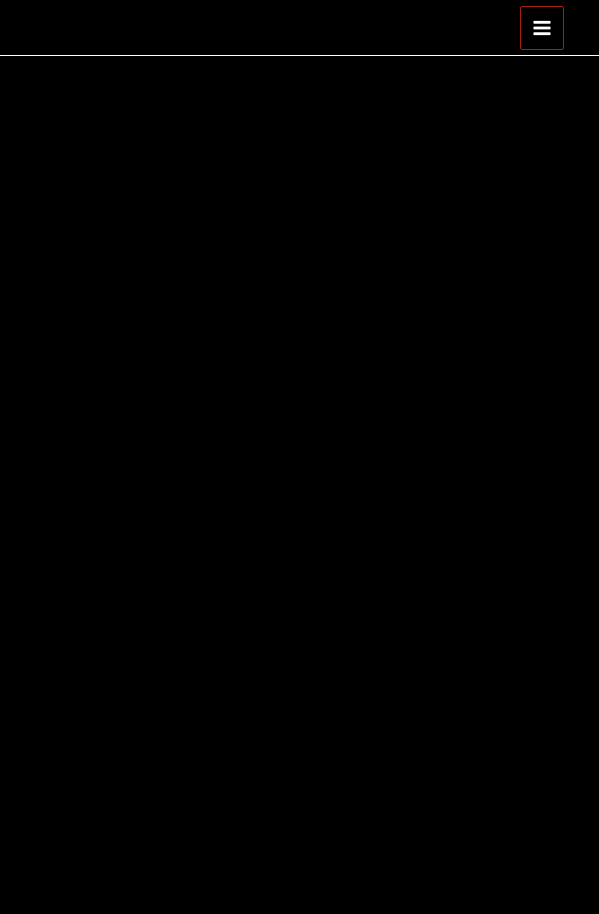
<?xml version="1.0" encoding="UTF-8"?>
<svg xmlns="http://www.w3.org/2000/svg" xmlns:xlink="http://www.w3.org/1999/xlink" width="599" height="914">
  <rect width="100%" height="100%" fill="#000000" />
  <rect y="55" width="599" height="1" fill="#ffffff" />
  <rect x="520.5" y="6.5" width="43" height="43" rx="1.5" fill="none" stroke="#a5210d" />
  <image x="533" y="20" width="18" height="16" xlink:href="image1.png" />
</svg>
